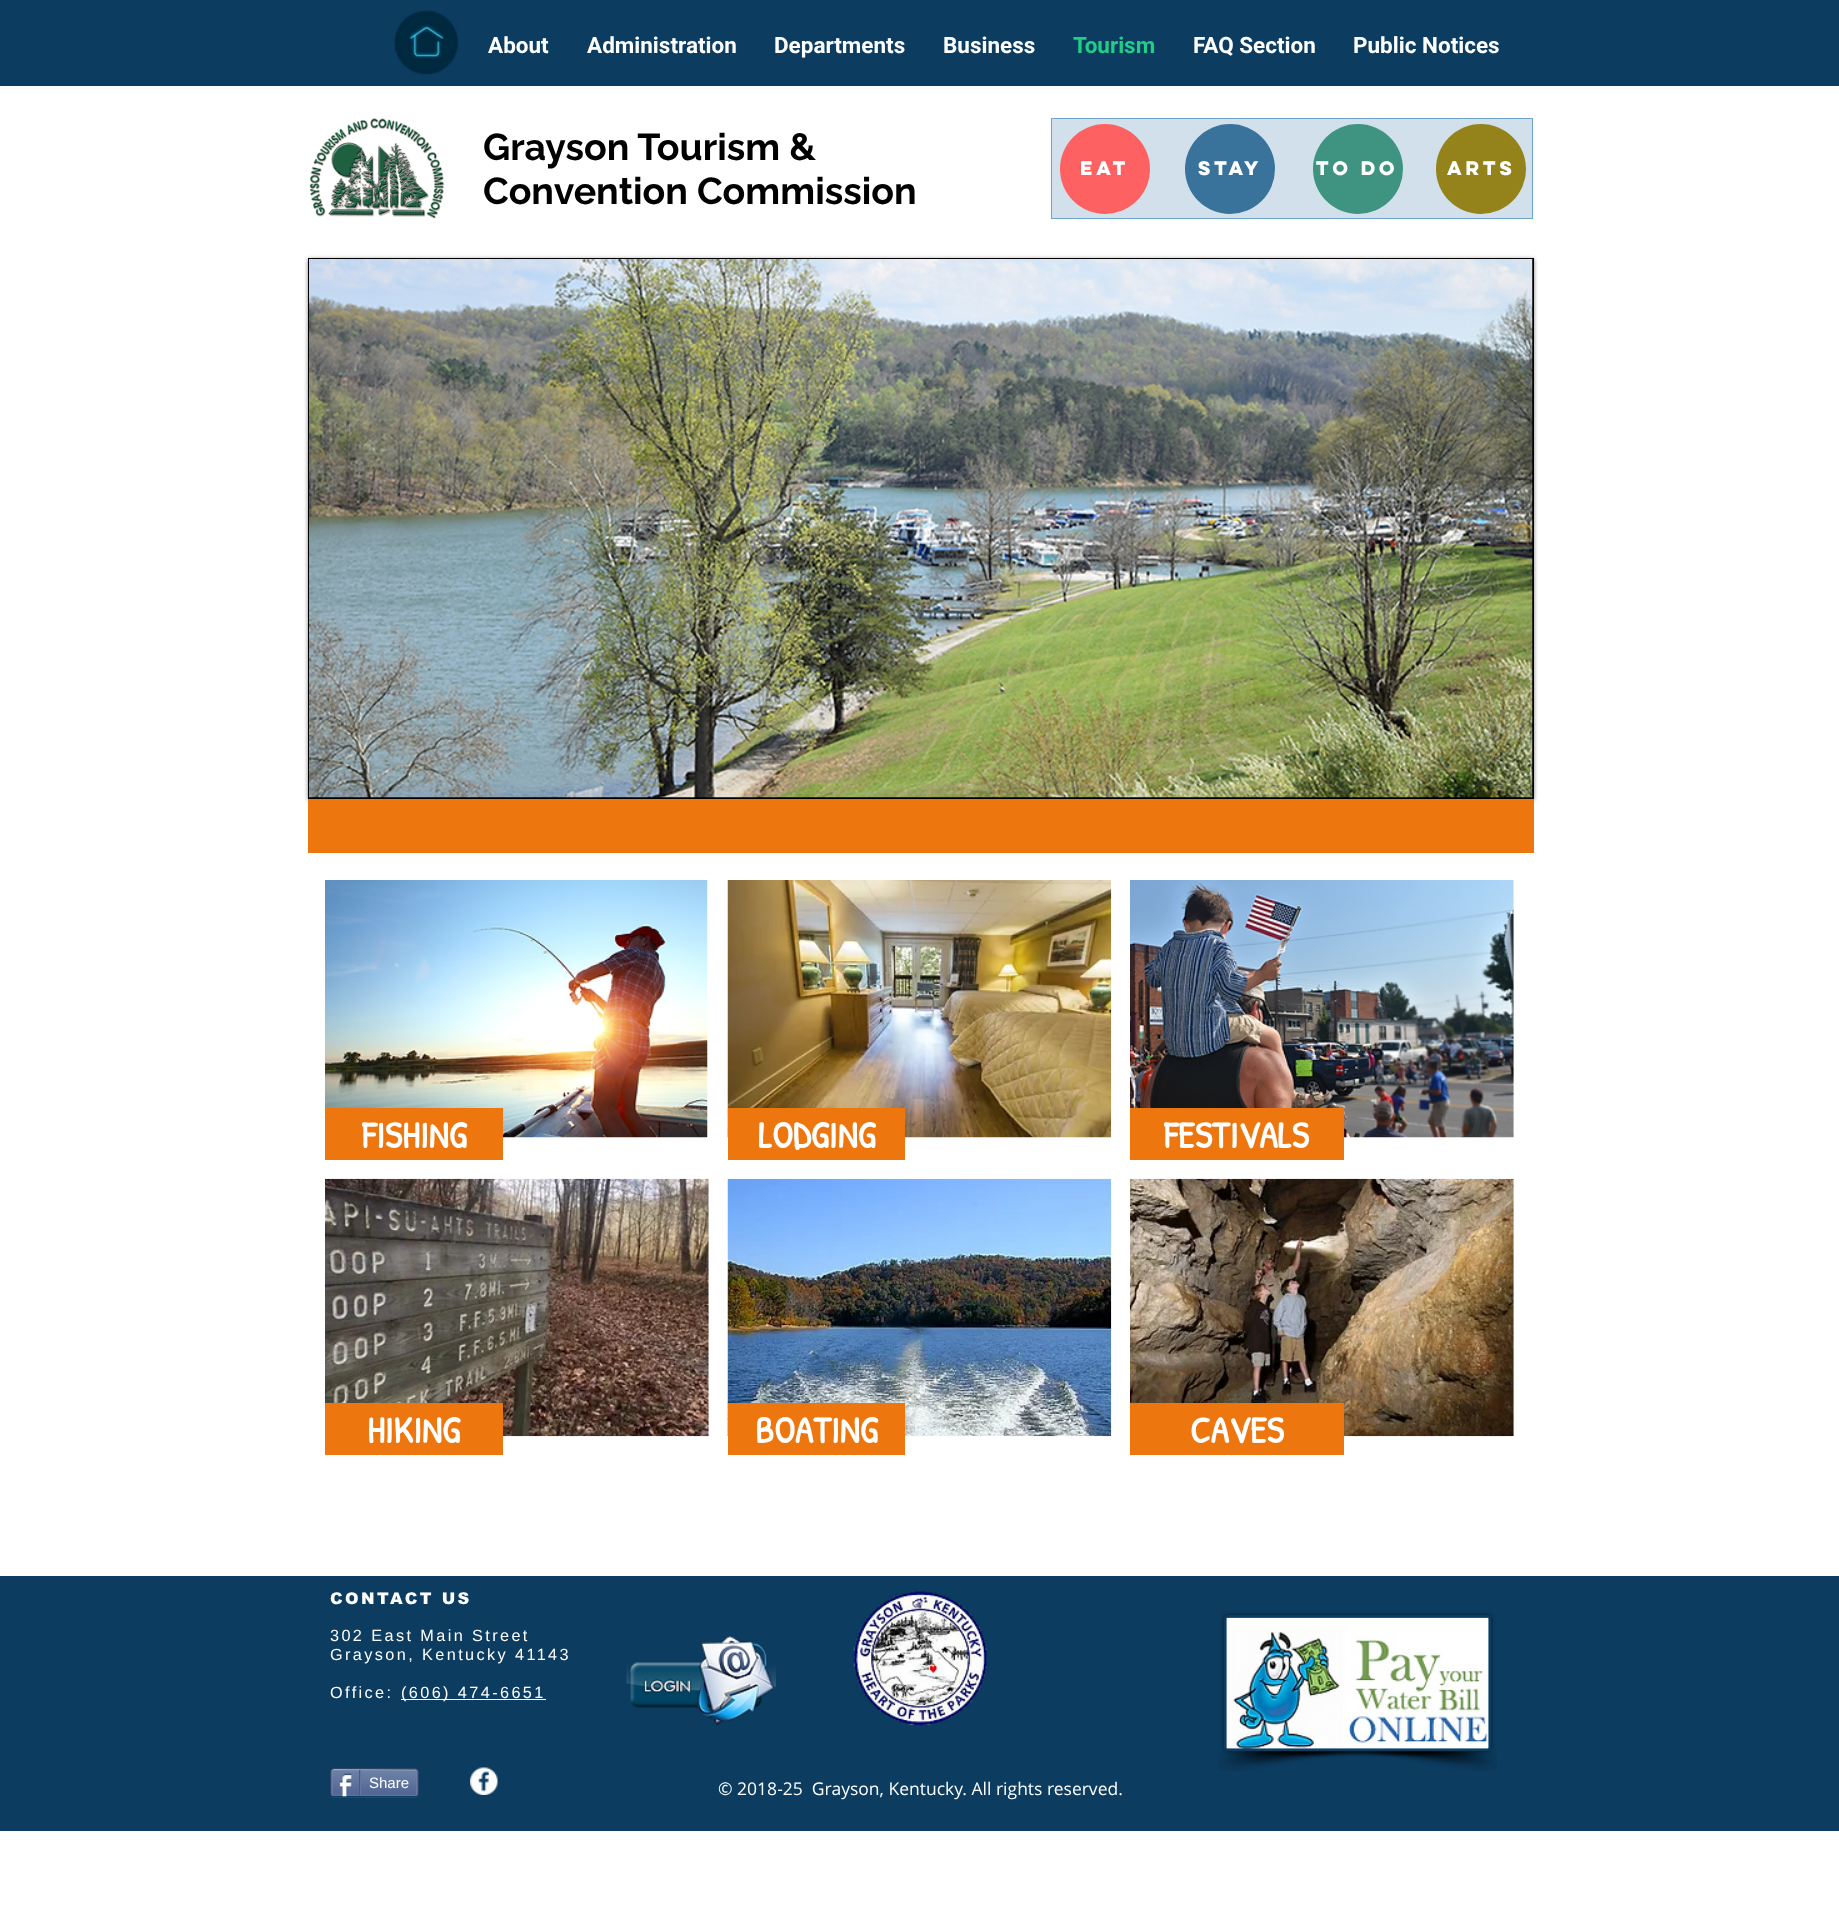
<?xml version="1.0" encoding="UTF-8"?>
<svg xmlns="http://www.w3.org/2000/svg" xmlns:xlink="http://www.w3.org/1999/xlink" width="1839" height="1918">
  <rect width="100%" height="100%" fill="#ffffff" />
  <rect width="1839" height="86" fill="#0c3c60" />
  <image x="394" y="10" width="65" height="65" xlink:href="image1.png" />
  <image x="309" y="118" width="136" height="101" xlink:href="image2.png" />
  <rect x="1051.5" y="118.5" width="481" height="100" fill="#d1e0eb" stroke="#6ea4ca" />
  <circle cx="1105" cy="169" r="45" fill="#fe6161" />
  <circle cx="1230" cy="169" r="45" fill="#39729b" />
  <circle cx="1358" cy="169" r="45" fill="#3e9481" />
  <circle cx="1481" cy="169" r="45" fill="#94821b" />
  <rect x="308" y="259" width="1226" height="541" fill="#000000" fill-opacity="0.5" filter="blur(2px)" />
  <rect x="309" y="259" width="1224" height="539" fill="#000000" />
  <image x="309" y="259" width="1224" height="539" xlink:href="image3.png" />
  <rect x="308.5" y="258.5" width="1225" height="540" fill="none" stroke="#000000" />
  <rect x="308" y="799" width="1226" height="54" fill="#ed760e" />
  <image x="325" y="880" width="383" height="258" xlink:href="image4.png" />
  <image x="727" y="880" width="385" height="258" xlink:href="image5.png" />
  <image x="1130" y="880" width="384" height="258" xlink:href="image6.png" />
  <rect x="325" y="1108" width="178" height="52" fill="#ed760e" />
  <rect x="728" y="1108" width="177" height="52" fill="#ed760e" />
  <rect x="1130" y="1108" width="214" height="52" fill="#ed760e" />
  <image x="325" y="1178" width="384" height="259" xlink:href="image7.png" />
  <image x="727" y="1178" width="385" height="259" xlink:href="image8.png" />
  <image x="1130" y="1178" width="384" height="259" xlink:href="image9.png" />
  <rect x="325" y="1403" width="178" height="52" fill="#ed760e" />
  <rect x="728" y="1403" width="177" height="52" fill="#ed760e" />
  <rect x="1130" y="1403" width="214" height="52" fill="#ed760e" />
  <rect y="1576" width="1839" height="255" fill="#0c3c60" />
  <rect x="401" y="1699" width="145" height="1" fill="#ffffff" />
  <image x="626" y="1635" width="150" height="91" xlink:href="image10.png" />
  <image x="853" y="1591" width="135" height="135" xlink:href="image11.png" />
  <rect x="1224" y="1615" width="267" height="136" rx="4" fill="#000000" fill-opacity="0.5" filter="blur(2px)" />
  <rect x="1224" y="1615" width="267" height="136" rx="4" fill="#0c3c60" />
  <image x="1226" y="1617" width="263" height="132" xlink:href="image12.png" />
  <image x="1218" y="1751" width="168" height="20" xlink:href="image13.png" />
  <image x="1340" y="1751" width="157" height="20" xlink:href="image14.png" />
  <rect x="330.5" y="1768.5" width="88" height="29" rx="3.5" fill="none" stroke="#2d4565" />
  <image x="331" y="1770" width="87" height="27" xlink:href="image15.png" />
  <path d="M 332.5 1770 l 1.5 -0.5 l 82.5 0.5" fill="none" stroke="#9aabc6" stroke-width="1.2" />
  <path d="M 416.5 1770 l 0.5 1 v 23 l -0.5 1" fill="none" stroke="#6f83ad" stroke-width="1.2" />
  <path d="M 416.5 1795 l -1.5 0.5 l -82.5 -0.5" fill="none" stroke="#6176a3" stroke-width="1.2" />
  <path d="M 332.5 1795 l -0.5 -1 v -23 l 0.5 -1" fill="none" stroke="#6f83ad" stroke-width="1.2" />
  <image x="339" y="1773" width="13" height="24" xlink:href="image16.png" />
  <rect x="359" y="1770" width="1" height="26" fill="#425e85" />
  <rect x="360" y="1770" width="1" height="25" fill="#6176a3" />
  <image x="470" y="1767" width="28" height="28" xlink:href="image17.png" />
  <text x="488" y="53" style="font-family: Roboto; font-size: 22.5px; font-weight: bold; fill: #ffffff">About</text>
  <text x="587" y="53" style="font-family: Roboto; font-size: 22.5px; font-weight: bold; fill: #ffffff">Administration</text>
  <text x="774" y="53" style="font-family: Roboto; font-size: 22.5px; font-weight: bold; fill: #ffffff">Departments</text>
  <text x="943" y="53" style="font-family: Roboto; font-size: 22.5px; font-weight: bold; fill: #ffffff">Business</text>
  <text x="1073" y="53" style="font-family: Roboto; font-size: 22.5px; font-weight: bold; fill: #20ce88">Tourism</text>
  <text x="1193" y="53" style="font-family: Roboto; font-size: 22.5px; font-weight: bold; fill: #ffffff">FAQ Section</text>
  <text x="1353" y="53" style="font-family: Roboto; font-size: 22.5px; font-weight: bold; fill: #ffffff">Public Notices</text>
  <text x="483" y="160" style="font-family: Raleway; font-size: 37.5px; font-weight: bold; fill: #000000">Grayson Tourism &amp;</text>
  <text x="483" y="204" style="font-family: Raleway; font-size: 37.5px; font-weight: bold; fill: #000000">Convention Commission</text>
  <text x="1080" y="175" style="font-family: 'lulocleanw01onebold'; font-size: 17.5px; font-weight: bold; fill: #ffffff">EAT</text>
  <text x="1198" y="175" style="font-family: 'lulocleanw01onebold'; font-size: 17.5px; font-weight: bold; fill: #ffffff">STAY</text>
  <text x="1316" y="175" style="font-family: 'lulocleanw01onebold'; font-size: 17.5px; font-weight: bold; fill: #ffffff">TO DO</text>
  <text x="1447" y="175" style="font-family: 'lulocleanw01onebold'; font-size: 17.5px; font-weight: bold; fill: #ffffff">ARTS</text>
  <text x="362" y="1148" style="font-family: Patrick Hand; font-size: 37.5px; font-weight: bold; fill: #ffffff">FISHING</text>
  <text x="758" y="1148" style="font-family: Patrick Hand; font-size: 37.5px; font-weight: bold; fill: #ffffff">LODGING</text>
  <text x="1164" y="1148" style="font-family: Patrick Hand; font-size: 37.5px; font-weight: bold; fill: #ffffff">FESTIVALS</text>
  <text x="367" y="1443" style="font-family: Patrick Hand; font-size: 37.5px; font-weight: bold; fill: #ffffff">HIKING</text>
  <text x="755" y="1443" style="font-family: Patrick Hand; font-size: 37.5px; font-weight: bold; fill: #ffffff">BOATING</text>
  <text x="1190" y="1443" style="font-family: Patrick Hand; font-size: 37.5px; font-weight: bold; fill: #ffffff">CAVES</text>
  <text x="330" y="1604" style="font-family: arial; font-size: 16.25px; font-weight: 900; letter-spacing: 2.4px; fill: #ffffff">CONTACT US</text>
  <text x="330" y="1641" style="font-family: Liberation Sans; font-size: 16.25px; letter-spacing: 2.4px; fill: #ffffff">302 East Main Street</text>
  <text x="330" y="1660" style="font-family: Liberation Sans; font-size: 16.25px; letter-spacing: 2.4px; fill: #ffffff">Grayson, Kentucky 41143</text>
  <text x="330" y="1698" style="font-family: Liberation Sans; font-size: 16.25px; letter-spacing: 2.4px; fill: #ffffff">Office:</text>
  <text x="401" y="1698" style="font-family: Liberation Sans; font-size: 16.25px; letter-spacing: 2.4px; fill: #ffffff">(606) 474-6651</text>
  <text x="369" y="1788" style="font-family: Liberation Sans; font-size: 15px; fill: #ffffff">Share</text>
  <text x="718" y="1795" style="font-family: Open Sans; font-size: 17.5px; fill: #ffffff" xml:space="preserve">© 2018-25  Grayson, Kentucky. All rights reserved.</text>
</svg>
